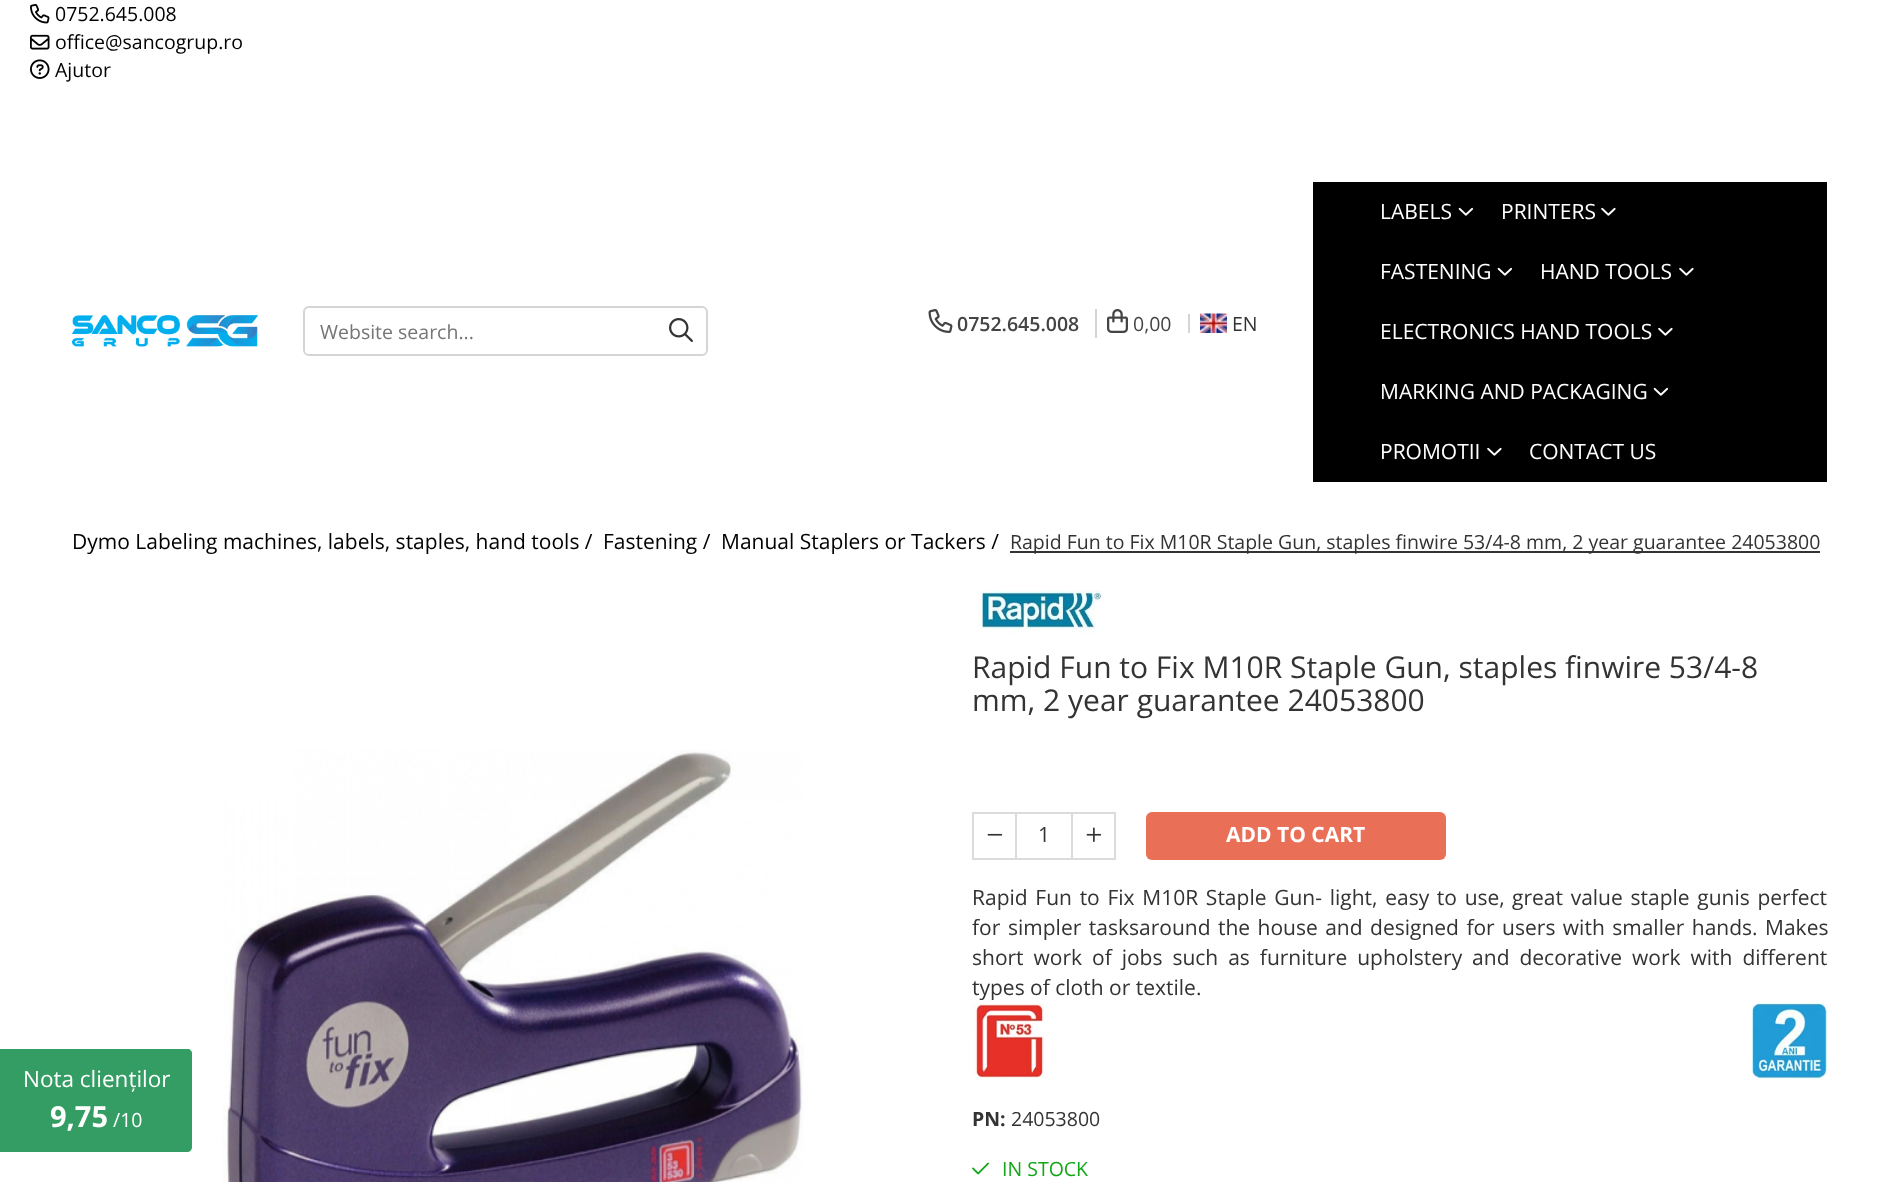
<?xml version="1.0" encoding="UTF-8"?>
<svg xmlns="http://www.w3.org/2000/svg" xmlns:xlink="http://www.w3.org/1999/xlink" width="1898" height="1182">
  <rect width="100%" height="100%" fill="#ffffff" />
  <image x="30" y="3" width="20" height="21" xlink:href="image1.png" />
  <image x="30" y="34" width="20" height="16" xlink:href="image2.png" />
  <image x="30" y="59" width="20" height="20" xlink:href="image3.png" />
  <image x="72" y="315" width="186" height="32" xlink:href="image4.png" />
  <rect x="304" y="307" width="403" height="48" rx="5" fill="none" stroke="#d5d5d5" stroke-width="2" />
  <image x="669" y="318" width="24" height="24" xlink:href="image5.png" />
  <image x="928" y="309" width="25" height="24" xlink:href="image6.png" />
  <rect x="1095" y="309" width="2" height="29" fill="#d5d5d5" />
  <image x="1107" y="309" width="21" height="24" xlink:href="image7.png" />
  <image x="1200" y="313" width="27" height="20" xlink:href="image8.png" />
  <rect x="1188" y="314" width="2" height="19" fill="#d5d5d5" />
  <rect x="1313" y="182" width="514" height="300" fill="#000000" />
  <image x="1458" y="207" width="16" height="9" xlink:href="image9.png" />
  <image x="1601" y="207" width="15" height="9" xlink:href="image10.png" />
  <image x="1497" y="267" width="16" height="9" xlink:href="image9.png" />
  <image x="1679" y="267" width="15" height="9" xlink:href="image10.png" />
  <image x="1658" y="327" width="15" height="9" xlink:href="image10.png" />
  <image x="1653" y="387" width="16" height="9" xlink:href="image9.png" />
  <image x="1487" y="447" width="15" height="9" xlink:href="image10.png" />
  <rect x="1010" y="551" width="810" height="2" fill="#333333" />
  <image x="222" y="750" width="582" height="432" xlink:href="image11.png" />
  <image x="976" y="590" width="125" height="45" xlink:href="image12.png" />
  <rect x="973" y="813" width="43" height="46" fill="none" stroke="#dbdbdb" stroke-width="2" />
  <image x="987" y="833" width="16" height="3" xlink:href="image13.png" />
  <rect x="1017" y="812" width="54" height="2" fill="#dbdbdb" />
  <rect x="1017" y="858" width="54" height="2" fill="#dbdbdb" />
  <rect x="1072" y="813" width="43" height="46" fill="none" stroke="#dbdbdb" stroke-width="2" />
  <image x="1086" y="827" width="16" height="15" xlink:href="image14.png" />
  <rect x="1146" y="812" width="300" height="48" rx="6" fill="#e96f56" />
  <image x="972" y="1003" width="72" height="76" xlink:href="image15.png" />
  <image x="1752" y="1003" width="75" height="76" xlink:href="image16.png" />
  <image x="972" y="1162" width="17" height="13" xlink:href="image17.png" />
  <path d="M 0 1049 h 187 c 3 0 5 2 5 5 v 93 c 0 3 -2 5 -5 5 h -187 z" fill="#349d64" />
  <rect y="1049" width="192" height="46" rx="5" fill="#349d64" />
  <text x="55" y="21" style="font-family: Open Sans; font-size: 19.5px; fill: #000000">0752.645.008</text>
  <text x="55" y="49" style="font-family: Open Sans; font-size: 19.5px; fill: #000000">office@sancogrup.ro</text>
  <text x="55" y="77" style="font-family: Open Sans; font-size: 19.5px; fill: #000000">Ajutor</text>
  <text x="320" y="339" style="font-family: Open Sans; font-size: 19.5px; fill: #757575">Website search...</text>
  <text x="957" y="331" style="font-family: Open Sans; font-size: 19.5px; font-weight: 600; fill: #444444">0752.645.008</text>
  <text x="1133" y="331" style="font-family: Open Sans; font-size: 19.5px; fill: #444444">0,00</text>
  <text x="1232" y="331" style="font-family: Open Sans; font-size: 19.5px; fill: #333333">EN</text>
  <text x="1380" y="219" style="font-family: Open Sans; font-size: 21px; fill: #ffffff">LABELS</text>
  <text x="1501" y="219" style="font-family: Open Sans; font-size: 21px; fill: #ffffff">PRINTERS</text>
  <text x="1380" y="279" style="font-family: Open Sans; font-size: 21px; fill: #ffffff">FASTENING</text>
  <text x="1540" y="279" style="font-family: Open Sans; font-size: 21px; fill: #ffffff">HAND TOOLS</text>
  <text x="1380" y="339" style="font-family: Open Sans; font-size: 21px; fill: #ffffff">ELECTRONICS HAND TOOLS</text>
  <text x="1380" y="399" style="font-family: Open Sans; font-size: 21px; fill: #ffffff">MARKING AND PACKAGING</text>
  <text x="1380" y="459" style="font-family: Open Sans; font-size: 21px; fill: #ffffff">PROMOTII</text>
  <text x="1529" y="459" style="font-family: Open Sans; font-size: 21px; fill: #ffffff">CONTACT US</text>
  <text x="72" y="549" style="font-family: Open Sans; font-size: 21px; fill: #000000">Dymo Labeling machines, labels, staples, hand tools /</text>
  <text x="603" y="549" style="font-family: Open Sans; font-size: 21px; fill: #000000">Fastening /</text>
  <text x="721" y="549" style="font-family: Open Sans; font-size: 21px; fill: #000000">Manual Staplers or Tackers /</text>
  <text x="1010" y="549" style="font-family: Open Sans; font-size: 19.5px; fill: #333333">Rapid Fun to Fix M10R Staple Gun, staples finwire 53/4-8 mm, 2 year guarantee 24053800</text>
  <text x="972" y="678" style="font-family: Open Sans; font-size: 30px; fill: #333333">Rapid Fun to Fix M10R Staple Gun, staples finwire 53/4-8</text>
  <text x="972" y="711" style="font-family: Open Sans; font-size: 30px; fill: #333333">mm, 2 year guarantee 24053800</text>
  <text x="1038" y="842" style="font-family: Open Sans; font-size: 21px; fill: #333333">1</text>
  <text x="1226" y="842" style="font-family: Open Sans; font-size: 21px; font-weight: bold; fill: #ffffff">ADD TO CART</text>
  <text x="972" y="905" word-spacing="2.25" style="font-family: Open Sans; font-size: 21px; fill: #333333">Rapid Fun to Fix M10R Staple Gun- light, easy to use,</text>
  <text x="1512" y="905" word-spacing="2.25" style="font-family: Open Sans; font-size: 21px; fill: #333333">great value staple gunis perfect</text>
  <text x="1139" y="935" word-spacing="2" style="font-family: Open Sans; font-size: 21px; fill: #333333">around the house and designed for users with smaller hands. Makes</text>
  <text x="972" y="965" word-spacing="4.5" style="font-family: Open Sans; font-size: 21px; fill: #333333">short work of jobs such as furniture upholstery and decorative work with different</text>
  <text x="972" y="995" style="font-family: Open Sans; font-size: 21px; fill: #333333">types of cloth or textile.</text>
  <text x="972" y="935" style="font-family: Open Sans; font-size: 21px; fill: #333333">for</text>
  <text x="1008" y="935" word-spacing="2" style="font-family: Open Sans; font-size: 21px; fill: #333333">simpler tasks</text>
  <text x="972" y="1126" style="font-family: Open Sans; font-size: 19.5px; font-weight: bold; fill: #333333">PN:</text>
  <text x="1011" y="1126" style="font-family: Open Sans; font-size: 19.5px; fill: #333333">24053800</text>
  <text x="1002" y="1176" style="font-family: Open Sans; font-size: 19.5px; fill: #11a717">IN STOCK</text>
  <text x="23" y="1087" style="font-family: Open Sans; font-size: 22.5px; fill: #ffffff">Nota clienților</text>
  <text x="50" y="1127" style="font-family: Open Sans; font-size: 29px; font-weight: bold; fill: #ffffff">9,75</text>
  <text x="113" y="1127" style="font-family: Open Sans; font-size: 19.5px; fill: #ffffff">/10</text>
</svg>
